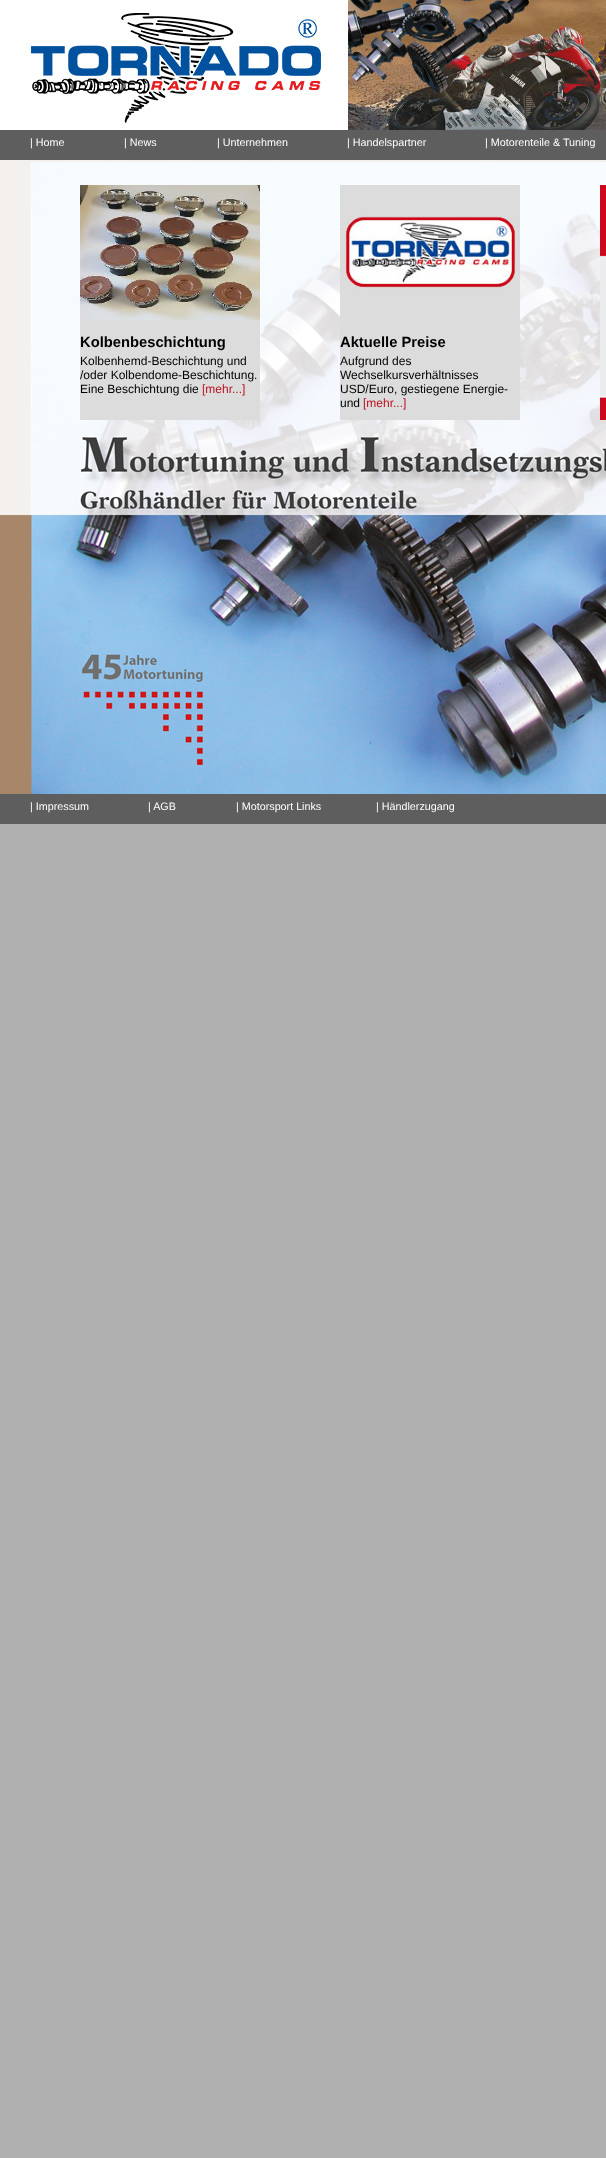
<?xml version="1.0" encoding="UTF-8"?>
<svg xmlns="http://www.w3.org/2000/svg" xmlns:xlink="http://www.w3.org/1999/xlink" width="606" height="2158">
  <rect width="100%" height="100%" fill="#b0b0b0" />
  <image x="0" y="0" width="606" height="130" xlink:href="image1.png" />
  <rect y="130" width="606" height="30" fill="#5f5e5f" />
  <image x="0" y="160" width="606" height="634" xlink:href="image2.png" />
  <rect x="80" y="320" width="180" height="100" fill="#dcdcdc" />
  <image x="80" y="185" width="180" height="135" xlink:href="image3.png" />
  <rect x="340" y="320" width="180" height="100" fill="#dcdcdc" />
  <image x="340" y="185" width="180" height="135" xlink:href="image4.png" />
  <image x="600" y="185" width="6" height="235" xlink:href="image5.png" />
  <rect y="794" width="606" height="30" fill="#5f5e5f" />
  <text x="30" y="146" style="font-family: Liberation Sans; font-size: 10.75px; fill: #ffffff">| Home</text>
  <text x="124" y="146" style="font-family: Liberation Sans; font-size: 10.75px; fill: #ffffff">| News</text>
  <text x="217" y="146" style="font-family: Liberation Sans; font-size: 10.75px; fill: #ffffff">| Unternehmen</text>
  <text x="347" y="146" style="font-family: Liberation Sans; font-size: 10.75px; fill: #ffffff">| Handelspartner</text>
  <text x="485" y="146" style="font-family: Liberation Sans; font-size: 10.75px; fill: #ffffff">| Motorenteile &amp; Tuning</text>
  <text x="80" y="347" style="font-family: Liberation Sans; font-size: 14.75px; font-weight: bold; fill: #000000">Kolbenbeschichtung</text>
  <text x="80" y="365" style="font-family: Liberation Sans; font-size: 12px; fill: #000000">Kolbenhemd-Beschichtung und</text>
  <text x="80" y="379" style="font-family: Liberation Sans; font-size: 12px; fill: #000000">/oder Kolbendome-Beschichtung.</text>
  <text x="80" y="393" style="font-family: Liberation Sans; font-size: 12px; fill: #000000">Eine Beschichtung die</text>
  <text x="202" y="393" style="font-family: Liberation Sans; font-size: 12px; fill: #ba1221">[mehr...]</text>
  <text x="340" y="347" style="font-family: Liberation Sans; font-size: 14.75px; font-weight: bold; fill: #000000">Aktuelle Preise</text>
  <text x="340" y="365" style="font-family: Liberation Sans; font-size: 12px; fill: #000000">Aufgrund des</text>
  <text x="340" y="379" style="font-family: Liberation Sans; font-size: 12px; fill: #000000">Wechselkursverhältnisses</text>
  <text x="340" y="393" style="font-family: Liberation Sans; font-size: 12px; fill: #000000">USD/Euro, gestiegene Energie-</text>
  <text x="340" y="407" style="font-family: Liberation Sans; font-size: 12px; fill: #000000">und</text>
  <text x="363" y="407" style="font-family: Liberation Sans; font-size: 12px; fill: #ba1221">[mehr...]</text>
  <text x="30" y="810" style="font-family: Liberation Sans; font-size: 10.75px; fill: #ffffff">| Impressum</text>
  <text x="148" y="810" style="font-family: Liberation Sans; font-size: 10.75px; fill: #ffffff">| AGB</text>
  <text x="236" y="810" style="font-family: Liberation Sans; font-size: 10.75px; fill: #ffffff">| Motorsport Links</text>
  <text x="376" y="810" style="font-family: Liberation Sans; font-size: 10.75px; fill: #ffffff">| Händlerzugang</text>
</svg>
